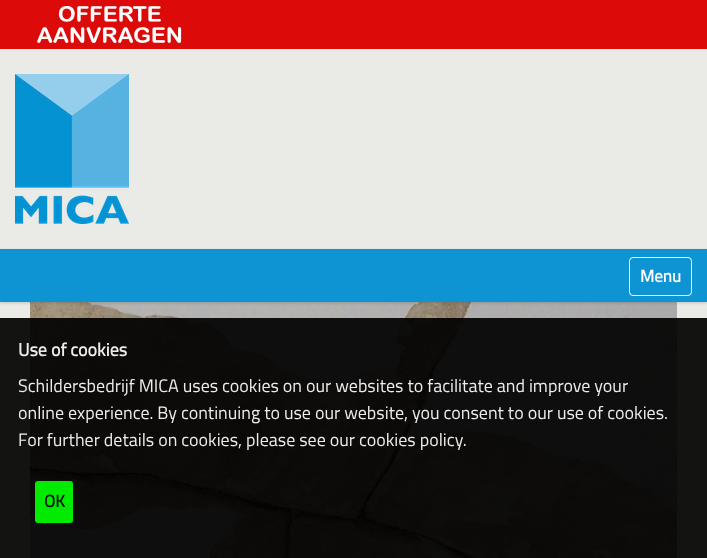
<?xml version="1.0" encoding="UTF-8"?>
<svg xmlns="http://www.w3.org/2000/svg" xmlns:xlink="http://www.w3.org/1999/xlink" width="707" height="558">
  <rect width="100%" height="100%" fill="#eaeae7" />
  <rect y="318" width="707" height="240" fill="#131312" />
  <rect width="707" height="49" fill="#dd0a0a" />
  <image x="37" y="6" width="145" height="37" xlink:href="image1.png" />
  <image x="15" y="74" width="114" height="150" xlink:href="image2.png" />
  <image x="30" y="302" width="647" height="256" xlink:href="image3.png" />
  <rect y="250" width="707" height="53" fill="#000000" fill-opacity="0.17" filter="blur(1.5px)" />
  <rect y="249" width="707" height="53" fill="#0e93d3" />
  <rect x="629.5" y="257.5" width="62" height="38" rx="3.5" fill="none" stroke="#ffffff" />
  <rect x="35" y="481" width="38" height="42" rx="3" fill="#00ff00" fill-opacity="0.92" />
  <text x="640" y="282" style="font-family: Titillium Web; font-size: 17px; font-weight: bold; fill: #ffffff">Menu</text>
  <text x="18" y="356" style="font-family: Titillium Web; font-size: 18px; font-weight: bold; fill: #ececeb">Use of cookies</text>
  <text x="18" y="392" style="font-family: Titillium Web; font-size: 18px; fill: #ececeb">Schildersbedrijf MICA uses cookies on our websites to facilitate and improve your</text>
  <text x="18" y="419" style="font-family: Titillium Web; font-size: 18px; fill: #ececeb">online experience. By continuing to use our website, you consent to our use of cookies.</text>
  <text x="18" y="446" style="font-family: Titillium Web; font-size: 18px; fill: #ececeb">For further details on cookies, please see our cookies policy.</text>
  <text x="44" y="507" style="font-family: Titillium Web; font-size: 17px; font-weight: bold; fill: #001300">OK</text>
</svg>
